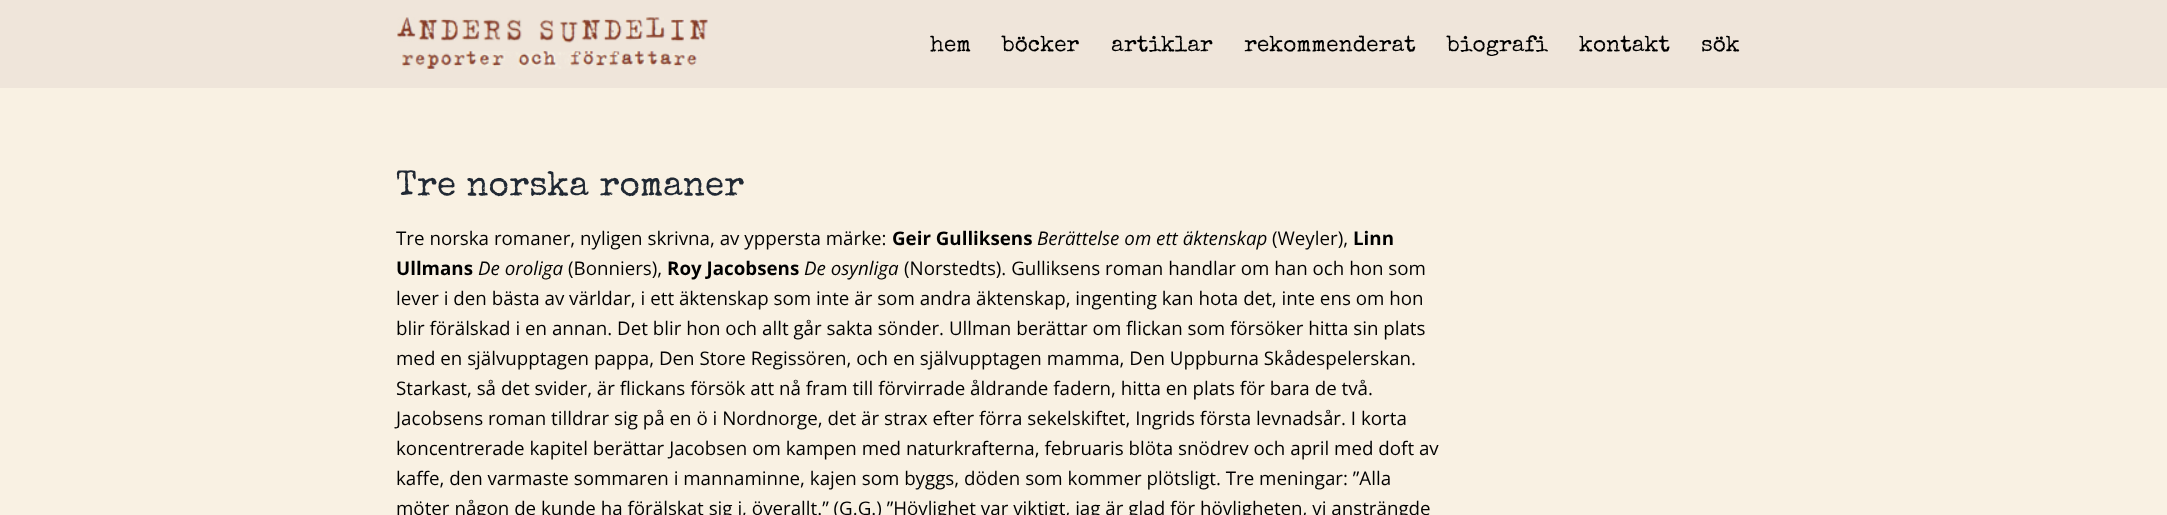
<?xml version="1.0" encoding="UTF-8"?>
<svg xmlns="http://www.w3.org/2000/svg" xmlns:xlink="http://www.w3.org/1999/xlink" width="2167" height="515">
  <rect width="100%" height="100%" fill="#f9f1e3" />
  <rect width="2167" height="88" fill="#efe5da" />
  <image x="397" y="17" width="311" height="52" xlink:href="image1.png" />
  <text x="930" y="51" style="font-family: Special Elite; font-size: 22.5px; fill: #000000">hem</text>
  <text x="1002" y="51" style="font-family: Special Elite; font-size: 22.5px; fill: #000000">böcker</text>
  <text x="1111" y="51" style="font-family: Special Elite; font-size: 22.5px; fill: #000000">artiklar</text>
  <text x="1244" y="51" style="font-family: Special Elite; font-size: 22.5px; fill: #000000">rekommenderat</text>
  <text x="1447" y="51" style="font-family: Special Elite; font-size: 22.5px; fill: #000000">biografi</text>
  <text x="1579" y="51" style="font-family: Special Elite; font-size: 22.5px; fill: #000000">kontakt</text>
  <text x="1701" y="51" style="font-family: Special Elite; font-size: 22.5px; fill: #000000">sök</text>
  <text x="396" y="195" style="font-family: Special Elite; font-size: 35px; fill: #212934">Tre norska romaner</text>
  <text x="396" y="245" style="font-family: Open Sans; font-size: 18.75px; fill: #000000">Tre norska romaner, nyligen skrivna, av yppersta märke:</text>
  <text x="892" y="245" style="font-family: Open Sans; font-size: 18.75px; font-weight: bold; fill: #000000">Geir Gulliksens</text>
  <text x="1037" y="245" style="font-family: Open Sans; font-size: 18.75px; font-style: italic; fill: #000000">Berättelse om ett äktenskap</text>
  <text x="1272" y="245" style="font-family: Open Sans; font-size: 18.75px; fill: #000000">(Weyler),</text>
  <text x="1353" y="245" style="font-family: Open Sans; font-size: 18.75px; font-weight: bold; fill: #000000">Linn</text>
  <text x="396" y="275" style="font-family: Open Sans; font-size: 18.75px; font-weight: bold; fill: #000000">Ullmans</text>
  <text x="478" y="275" style="font-family: Open Sans; font-size: 18.75px; font-style: italic; fill: #000000">De oroliga</text>
  <text x="568" y="275" style="font-family: Open Sans; font-size: 18.75px; fill: #000000">(Bonniers),</text>
  <text x="667" y="275" style="font-family: Open Sans; font-size: 18.75px; font-weight: bold; fill: #000000">Roy Jacobsens</text>
  <text x="804" y="275" style="font-family: Open Sans; font-size: 18.75px; font-style: italic; fill: #000000">De osynliga</text>
  <text x="904" y="275" style="font-family: Open Sans; font-size: 18.75px; fill: #000000">(Norstedts). Gulliksens roman handlar om han och hon som</text>
  <text x="396" y="305" style="font-family: Open Sans; font-size: 18.75px; fill: #000000">lever i den bästa av världar, i ett äktenskap som inte är som andra äktenskap, ingenting kan hota det, inte ens om hon</text>
  <text x="396" y="335" style="font-family: Open Sans; font-size: 18.75px; fill: #000000">blir förälskad i en annan. Det blir hon och allt går sakta sönder. Ullman berättar om flickan som försöker hitta sin plats</text>
  <text x="396" y="365" style="font-family: Open Sans; font-size: 18.75px; fill: #000000">med en självupptagen pappa, Den Store Regissören, och en självupptagen mamma, Den Uppburna Skådespelerskan.</text>
  <text x="396" y="395" style="font-family: Open Sans; font-size: 18.75px; fill: #000000">Starkast, så det svider, är flickans försök att nå fram till förvirrade åldrande fadern, hitta en plats för bara de två.</text>
  <text x="396" y="425" style="font-family: Open Sans; font-size: 18.75px; fill: #000000">Jacobsens roman tilldrar sig på en ö i Nordnorge, det är strax efter förra sekelskiftet, Ingrids första levnadsår. I korta</text>
  <text x="396" y="455" style="font-family: Open Sans; font-size: 18.75px; fill: #000000">koncentrerade kapitel berättar Jacobsen om kampen med naturkrafterna, februaris blöta snödrev och april med doft av</text>
  <text x="396" y="485" style="font-family: Open Sans; font-size: 18.75px; fill: #000000">kaffe, den varmaste sommaren i mannaminne, kajen som byggs, döden som kommer plötsligt. Tre meningar: ”Alla</text>
  <text x="396" y="515" style="font-family: Open Sans; font-size: 18.75px; fill: #000000">möter någon de kunde ha förälskat sig i, överallt.” (G.G.) ”Hövlighet var viktigt, jag är glad för hövligheten, vi ansträngde</text>
</svg>
